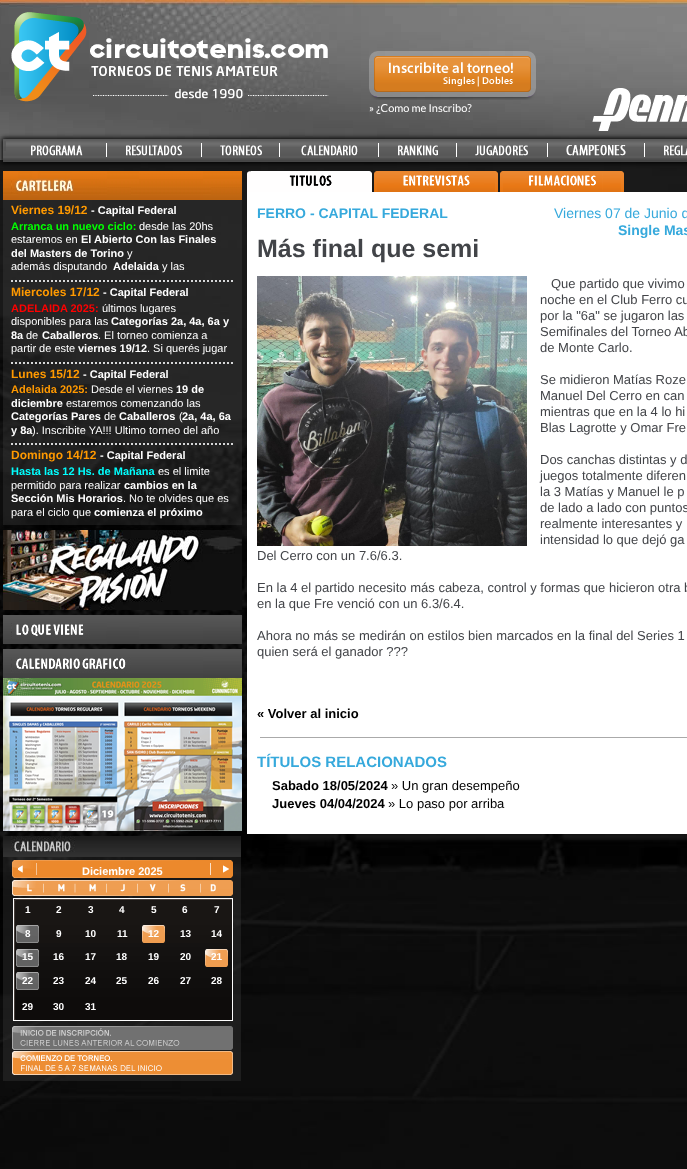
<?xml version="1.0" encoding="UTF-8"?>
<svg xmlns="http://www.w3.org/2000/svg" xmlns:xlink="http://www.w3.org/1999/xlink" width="687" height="1169">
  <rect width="100%" height="100%" fill="#ffffff" />
  <image x="0" y="160" width="687" height="1009" xlink:href="image1.png" />
  <image x="0" y="0" width="687" height="160" xlink:href="image2.png" />
  <image x="11" y="12" width="318" height="90" xlink:href="image3.png" />
  <image x="369" y="51" width="167" height="49" xlink:href="image4.png" />
  <image x="592" y="88" width="95" height="43" xlink:href="image5.png" />
  <rect x="2" y="138" width="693" height="25" fill="#000000" filter="blur(2.5px)" />
  <image x="3" y="139" width="684" height="23" xlink:href="image6.png" />
  <image x="3" y="141" width="3" height="10" xlink:href="image7.png" />
  <image x="31" y="145" width="52" height="11" xlink:href="image8.png" />
  <rect x="106" y="143" width="1" height="14" fill="#ffffff" />
  <image x="126" y="145" width="56" height="11" xlink:href="image9.png" />
  <rect x="201" y="143" width="1" height="14" fill="#ffffff" />
  <image x="220" y="145" width="42" height="11" xlink:href="image10.png" />
  <rect x="279" y="143" width="1" height="14" fill="#ffffff" />
  <image x="301" y="145" width="57" height="11" xlink:href="image11.png" />
  <rect x="378" y="143" width="1" height="14" fill="#ffffff" />
  <image x="398" y="145" width="40" height="11" xlink:href="image12.png" />
  <rect x="456" y="143" width="1" height="14" fill="#ffffff" />
  <image x="475" y="145" width="53" height="11" xlink:href="image13.png" />
  <rect x="547" y="143" width="1" height="14" fill="#ffffff" />
  <image x="566" y="145" width="60" height="11" xlink:href="image14.png" />
  <rect x="644" y="143" width="1" height="14" fill="#ffffff" />
  <image x="664" y="145" width="23" height="11" xlink:href="image15.png" />
  <image x="3" y="171" width="239" height="29" xlink:href="image16.png" />
  <rect x="3" y="200" width="239" height="325" fill="#4a4a4a" fill-opacity="0.28" />
  <path d="M 11 281 h 223" fill="none" stroke="#d6d7d8" stroke-width="2" stroke-dasharray="2 2" />
  <path d="M 11 363 h 223" fill="none" stroke="#d6d7d8" stroke-width="2" stroke-dasharray="2 2" />
  <path d="M 11 444 h 223" fill="none" stroke="#d6d7d8" stroke-width="2" stroke-dasharray="2 2" />
  <image x="3" y="530" width="239" height="80" xlink:href="image17.png" />
  <image x="3" y="615" width="239" height="29" xlink:href="image18.png" />
  <image x="3" y="649" width="239" height="29" xlink:href="image19.png" />
  <image x="3" y="678" width="239" height="153" xlink:href="image20.png" />
  <image x="3" y="836" width="238" height="21" xlink:href="image21.png" />
  <rect x="3" y="857" width="238" height="224" fill="#4a4a4a" fill-opacity="0.28" />
  <image x="12" y="860" width="221" height="18" xlink:href="image22.png" />
  <image x="18" y="863" width="19" height="12" xlink:href="image23.png" />
  <image x="210" y="863" width="19" height="12" xlink:href="image24.png" />
  <image x="13" y="898" width="220" height="123" xlink:href="image31.png" />
  <image x="16" y="925" width="23" height="18" xlink:href="image25.png" />
  <image x="142" y="925" width="23" height="18" xlink:href="image26.png" />
  <image x="16" y="949" width="23" height="18" xlink:href="image27.png" />
  <image x="205" y="949" width="23" height="18" xlink:href="image28.png" />
  <image x="16" y="972" width="23" height="18" xlink:href="image29.png" />
  <image x="12" y="880" width="221" height="16" xlink:href="image30.png" />
  <image x="12" y="1026" width="221" height="24" xlink:href="image32.png" />
  <image x="12" y="1051" width="221" height="24" xlink:href="image33.png" />
  <image x="247" y="171" width="125" height="21" xlink:href="image34.png" />
  <image x="374" y="171" width="124" height="21" xlink:href="image35.png" />
  <image x="500" y="171" width="124" height="21" xlink:href="image36.png" />
  <rect x="247" y="192" width="440" height="642" fill="#ffffff" />
  <image x="257" y="276" width="270" height="270" xlink:href="image37.png" />
  <rect x="260" y="737" width="427" height="1" fill="#aaaaaa" />
  <text x="369" y="112" style="font-family: Lato; font-size: 11px; fill: #ffffff">» ¿Como me Inscribo?</text>
  <text x="11" y="214" style="font-family: Liberation Sans; font-size: 12px; font-weight: bold; fill: #ff9900">Viernes 19/12</text>
  <text x="91" y="214" style="font-family: Liberation Sans; font-size: 11px; font-weight: bold; fill: #ffffff">- Capital Federal</text>
  <text x="11" y="230" style="font-family: Liberation Sans; font-size: 11px; font-weight: bold; fill: #00ff00">Arranca un nuevo ciclo:</text>
  <text x="139" y="230" style="font-family: Liberation Sans; font-size: 11px; fill: #ffffff">desde las 20hs</text>
  <text x="11" y="243" style="font-family: Liberation Sans; font-size: 11px; fill: #ffffff">estaremos en</text>
  <text x="81" y="243" style="font-family: Liberation Sans; font-size: 11px; font-weight: bold; fill: #ffffff">El Abierto Con las Finales</text>
  <text x="11" y="257" style="font-family: Liberation Sans; font-size: 11px; font-weight: bold; fill: #ffffff">del Masters de Torino</text>
  <text x="127" y="257" style="font-family: Liberation Sans; font-size: 11px; fill: #ffffff">y</text>
  <text x="11" y="270" style="font-family: Liberation Sans; font-size: 11px; fill: #ffffff">además disputando</text>
  <text x="113" y="270" style="font-family: Liberation Sans; font-size: 11px; font-weight: bold; fill: #ffffff">Adelaida</text>
  <text x="162" y="270" style="font-family: Liberation Sans; font-size: 11px; fill: #ffffff">y las</text>
  <text x="11" y="296" style="font-family: Liberation Sans; font-size: 12px; font-weight: bold; fill: #ff9900">Miercoles 17/12</text>
  <text x="103" y="296" style="font-family: Liberation Sans; font-size: 11px; font-weight: bold; fill: #ffffff">- Capital Federal</text>
  <text x="11" y="312" style="font-family: Liberation Sans; font-size: 11px; font-weight: bold; fill: #ff0000">ADELAIDA 2025:</text>
  <text x="102" y="312" style="font-family: Liberation Sans; font-size: 11px; fill: #ffffff">últimos lugares</text>
  <text x="11" y="325" style="font-family: Liberation Sans; font-size: 11px; fill: #ffffff">disponibles para las</text>
  <text x="111" y="325" style="font-family: Liberation Sans; font-size: 11px; font-weight: bold; fill: #ffffff">Categorías 2a, 4a, 6a y</text>
  <text x="11" y="339" style="font-family: Liberation Sans; font-size: 11px; font-weight: bold; fill: #ffffff">8a</text>
  <text x="26" y="339" style="font-family: Liberation Sans; font-size: 11px; fill: #ffffff">de</text>
  <text x="42" y="339" style="font-family: Liberation Sans; font-size: 11px; font-weight: bold; fill: #ffffff">Caballeros</text>
  <text x="98" y="339" style="font-family: Liberation Sans; font-size: 11px; fill: #ffffff">. El torneo comienza a</text>
  <text x="11" y="352" style="font-family: Liberation Sans; font-size: 11px; fill: #ffffff">partir de este</text>
  <text x="78" y="352" style="font-family: Liberation Sans; font-size: 11px; font-weight: bold; fill: #ffffff">viernes 19/12</text>
  <text x="147" y="352" style="font-family: Liberation Sans; font-size: 11px; fill: #ffffff">. Si querés jugar</text>
  <text x="11" y="378" style="font-family: Liberation Sans; font-size: 12px; font-weight: bold; fill: #ff9900">Lunes 15/12</text>
  <text x="83" y="378" style="font-family: Liberation Sans; font-size: 11px; font-weight: bold; fill: #ffffff">- Capital Federal</text>
  <text x="11" y="393" style="font-family: Liberation Sans; font-size: 11px; font-weight: bold; fill: #ff9900">Adelaida 2025:</text>
  <text x="91" y="393" style="font-family: Liberation Sans; font-size: 11px; fill: #ffffff">Desde el viernes</text>
  <text x="176" y="393" style="font-family: Liberation Sans; font-size: 11px; font-weight: bold; fill: #ffffff">19 de</text>
  <text x="11" y="407" style="font-family: Liberation Sans; font-size: 11px; font-weight: bold; fill: #ffffff">diciembre</text>
  <text x="66" y="407" style="font-family: Liberation Sans; font-size: 11px; fill: #ffffff">estaremos comenzando las</text>
  <text x="11" y="420" style="font-family: Liberation Sans; font-size: 11px; font-weight: bold; fill: #ffffff">Categorías Pares</text>
  <text x="104" y="420" style="font-family: Liberation Sans; font-size: 11px; fill: #ffffff">de</text>
  <text x="119" y="420" style="font-family: Liberation Sans; font-size: 11px; font-weight: bold; fill: #ffffff">Caballeros</text>
  <text x="179" y="420" style="font-family: Liberation Sans; font-size: 11px; fill: #ffffff">(</text>
  <text x="182" y="420" style="font-family: Liberation Sans; font-size: 11px; font-weight: bold; fill: #ffffff">2a, 4a, 6a</text>
  <text x="11" y="434" style="font-family: Liberation Sans; font-size: 11px; font-weight: bold; fill: #ffffff">y 8a</text>
  <text x="32" y="434" style="font-family: Liberation Sans; font-size: 11px; fill: #ffffff">). Inscribite YA!!! Ultimo torneo del año</text>
  <text x="11" y="459" style="font-family: Liberation Sans; font-size: 12px; font-weight: bold; fill: #ff9900">Domingo 14/12</text>
  <text x="100" y="459" style="font-family: Liberation Sans; font-size: 11px; font-weight: bold; fill: #ffffff">- Capital Federal</text>
  <text x="11" y="475" style="font-family: Liberation Sans; font-size: 11px; font-weight: bold; fill: #00ffff">Hasta las 12 Hs. de Mañana</text>
  <text x="158" y="475" style="font-family: Liberation Sans; font-size: 11px; fill: #ffffff">es el limite</text>
  <text x="11" y="489" style="font-family: Liberation Sans; font-size: 11px; fill: #ffffff">permitido para realizar</text>
  <text x="124" y="489" style="font-family: Liberation Sans; font-size: 11px; font-weight: bold; fill: #ffffff">cambios en la</text>
  <text x="11" y="502" style="font-family: Liberation Sans; font-size: 11px; font-weight: bold; fill: #ffffff">Sección Mis Horarios</text>
  <text x="123" y="502" style="font-family: Liberation Sans; font-size: 11px; fill: #ffffff">. No te olvides que es</text>
  <text x="11" y="516" style="font-family: Liberation Sans; font-size: 11px; fill: #ffffff">para el ciclo que</text>
  <text x="94" y="516" style="font-family: Liberation Sans; font-size: 11px; font-weight: bold; fill: #ffffff">comienza el próximo</text>
  <text x="82" y="875" style="font-family: Liberation Sans; font-size: 11px; font-weight: bold; fill: #ffffff">Diciembre 2025</text>
  <text x="25" y="913" style="font-family: Liberation Sans; font-size: 10px; font-weight: bold; fill: #ffffff">1</text>
  <text x="56" y="913" style="font-family: Liberation Sans; font-size: 10px; font-weight: bold; fill: #ffffff">2</text>
  <text x="88" y="913" style="font-family: Liberation Sans; font-size: 10px; font-weight: bold; fill: #ffffff">3</text>
  <text x="119" y="913" style="font-family: Liberation Sans; font-size: 10px; font-weight: bold; fill: #ffffff">4</text>
  <text x="151" y="913" style="font-family: Liberation Sans; font-size: 10px; font-weight: bold; fill: #ffffff">5</text>
  <text x="182" y="913" style="font-family: Liberation Sans; font-size: 10px; font-weight: bold; fill: #ffffff">6</text>
  <text x="214" y="913" style="font-family: Liberation Sans; font-size: 10px; font-weight: bold; fill: #ffffff">7</text>
  <text x="25" y="937" style="font-family: Liberation Sans; font-size: 10px; font-weight: bold; fill: #ffffff">8</text>
  <text x="56" y="937" style="font-family: Liberation Sans; font-size: 10px; font-weight: bold; fill: #ffffff">9</text>
  <text x="85" y="937" style="font-family: Liberation Sans; font-size: 10px; font-weight: bold; fill: #ffffff">10</text>
  <text x="117" y="937" style="font-family: Liberation Sans; font-size: 10px; font-weight: bold; fill: #ffffff">11</text>
  <text x="148" y="937" style="font-family: Liberation Sans; font-size: 10px; font-weight: bold; fill: #ffffff">12</text>
  <text x="180" y="937" style="font-family: Liberation Sans; font-size: 10px; font-weight: bold; fill: #ffffff">13</text>
  <text x="211" y="937" style="font-family: Liberation Sans; font-size: 10px; font-weight: bold; fill: #ffffff">14</text>
  <text x="22" y="960" style="font-family: Liberation Sans; font-size: 10px; font-weight: bold; fill: #ffffff">15</text>
  <text x="53" y="960" style="font-family: Liberation Sans; font-size: 10px; font-weight: bold; fill: #ffffff">16</text>
  <text x="85" y="960" style="font-family: Liberation Sans; font-size: 10px; font-weight: bold; fill: #ffffff">17</text>
  <text x="116" y="960" style="font-family: Liberation Sans; font-size: 10px; font-weight: bold; fill: #ffffff">18</text>
  <text x="148" y="960" style="font-family: Liberation Sans; font-size: 10px; font-weight: bold; fill: #ffffff">19</text>
  <text x="180" y="960" style="font-family: Liberation Sans; font-size: 10px; font-weight: bold; fill: #ffffff">20</text>
  <text x="211" y="960" style="font-family: Liberation Sans; font-size: 10px; font-weight: bold; fill: #ffffff">21</text>
  <text x="22" y="984" style="font-family: Liberation Sans; font-size: 10px; font-weight: bold; fill: #ffffff">22</text>
  <text x="53" y="984" style="font-family: Liberation Sans; font-size: 10px; font-weight: bold; fill: #ffffff">23</text>
  <text x="85" y="984" style="font-family: Liberation Sans; font-size: 10px; font-weight: bold; fill: #ffffff">24</text>
  <text x="116" y="984" style="font-family: Liberation Sans; font-size: 10px; font-weight: bold; fill: #ffffff">25</text>
  <text x="148" y="984" style="font-family: Liberation Sans; font-size: 10px; font-weight: bold; fill: #ffffff">26</text>
  <text x="180" y="984" style="font-family: Liberation Sans; font-size: 10px; font-weight: bold; fill: #ffffff">27</text>
  <text x="211" y="984" style="font-family: Liberation Sans; font-size: 10px; font-weight: bold; fill: #ffffff">28</text>
  <text x="22" y="1010" style="font-family: Liberation Sans; font-size: 10px; font-weight: bold; fill: #ffffff">29</text>
  <text x="53" y="1010" style="font-family: Liberation Sans; font-size: 10px; font-weight: bold; fill: #ffffff">30</text>
  <text x="85" y="1010" style="font-family: Liberation Sans; font-size: 10px; font-weight: bold; fill: #ffffff">31</text>
  <text x="257" y="218" style="font-family: Liberation Sans; font-size: 14px; font-weight: bold; fill: #36a9dc">FERRO - CAPITAL FEDERAL</text>
  <text x="554" y="218" style="font-family: Liberation Sans; font-size: 14px; fill: #36a9dc">Viernes 07 de Junio d</text>
  <text x="618" y="235" style="font-family: Liberation Sans; font-size: 14px; font-weight: bold; fill: #36a9dc">Single Mas</text>
  <text x="257" y="257" style="font-family: Liberation Sans; font-size: 25px; font-weight: bold; fill: #424448">Más final que semi</text>
  <text x="551" y="288" style="font-family: Liberation Sans; font-size: 13px; fill: #424448">Que partido que vivimo</text>
  <text x="540" y="304" style="font-family: Liberation Sans; font-size: 13px; fill: #424448">noche en el Club Ferro cu</text>
  <text x="540" y="320" style="font-family: Liberation Sans; font-size: 13px; fill: #424448">por la "6a" se jugaron las</text>
  <text x="540" y="336" style="font-family: Liberation Sans; font-size: 13px; fill: #424448">Semifinales del Torneo Ab</text>
  <text x="540" y="352" style="font-family: Liberation Sans; font-size: 13px; fill: #424448">de Monte Carlo.</text>
  <text x="540" y="384" style="font-family: Liberation Sans; font-size: 13px; fill: #424448">Se midieron Matías Roze</text>
  <text x="540" y="400" style="font-family: Liberation Sans; font-size: 13px; fill: #424448">Manuel Del Cerro en can</text>
  <text x="540" y="416" style="font-family: Liberation Sans; font-size: 13px; fill: #424448">mientras que en la 4 lo hi</text>
  <text x="540" y="432" style="font-family: Liberation Sans; font-size: 13px; fill: #424448">Blas Lagrotte y Omar Fre</text>
  <text x="540" y="464" style="font-family: Liberation Sans; font-size: 13px; fill: #424448">Dos canchas distintas y d</text>
  <text x="540" y="480" style="font-family: Liberation Sans; font-size: 13px; fill: #424448">juegos totalmente diferen</text>
  <text x="540" y="496" style="font-family: Liberation Sans; font-size: 13px; fill: #424448">la 3 Matías y Manuel le p</text>
  <text x="540" y="512" style="font-family: Liberation Sans; font-size: 13px; fill: #424448">de lado a lado con puntos</text>
  <text x="540" y="528" style="font-family: Liberation Sans; font-size: 13px; fill: #424448">realmente interesantes y</text>
  <text x="540" y="544" style="font-family: Liberation Sans; font-size: 13px; fill: #424448">intensidad lo que dejó ga</text>
  <text x="257" y="560" style="font-family: Liberation Sans; font-size: 13px; fill: #424448">Del Cerro con un 7.6/6.3.</text>
  <text x="257" y="592" style="font-family: Liberation Sans; font-size: 13px; fill: #424448">En la 4 el partido necesito más cabeza, control y formas que hicieron otra b</text>
  <text x="257" y="608" style="font-family: Liberation Sans; font-size: 13px; fill: #424448">en la que Fre venció con un 6.3/6.4.</text>
  <text x="257" y="640" style="font-family: Liberation Sans; font-size: 13px; fill: #424448">Ahora no más se medirán on estilos bien marcados en la final del Series 1</text>
  <text x="257" y="656" style="font-family: Liberation Sans; font-size: 13px; fill: #424448">quien será el ganador ???</text>
  <text x="257" y="718" style="font-family: Liberation Sans; font-size: 13px; font-weight: bold; fill: #000000">« Volver al inicio</text>
  <text x="257" y="767" style="font-family: Liberation Sans; font-size: 15px; font-weight: bold; fill: #36a9dc">TÍTULOS RELACIONADOS</text>
  <text x="272" y="790" style="font-family: Liberation Sans; font-size: 13px; font-weight: bold; fill: #000000">Sabado 18/05/2024</text>
  <text x="391" y="790" style="font-family: Liberation Sans; font-size: 13px; fill: #000000">» Un gran desempeño</text>
  <text x="272" y="808" style="font-family: Liberation Sans; font-size: 13px; font-weight: bold; fill: #000000">Jueves 04/04/2024</text>
  <text x="388" y="808" style="font-family: Liberation Sans; font-size: 13px; fill: #000000">» Lo paso por arriba</text>
</svg>
